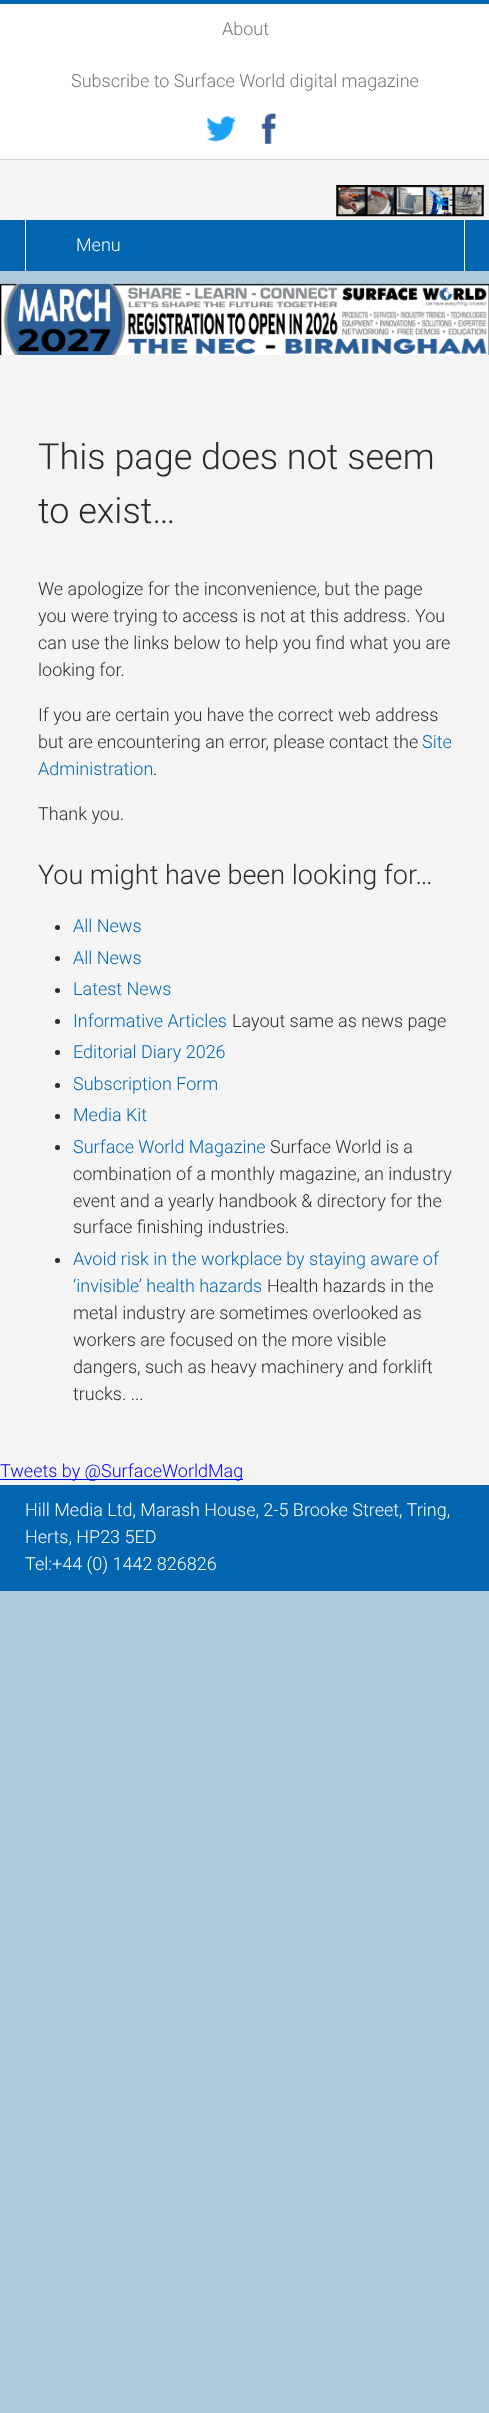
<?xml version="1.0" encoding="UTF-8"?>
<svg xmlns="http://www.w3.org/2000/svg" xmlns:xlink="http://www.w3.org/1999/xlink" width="489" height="2413">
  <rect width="100%" height="100%" fill="#afc9db" />
  <rect y="160" width="489" height="1325" fill="#f4f4f4" />
  <rect y="4" width="489" height="155" fill="#ffffff" />
  <rect width="489" height="4" fill="#0166af" />
  <rect y="159" width="489" height="1" fill="#d2d2d2" />
  <image x="206" y="116" width="31" height="26" xlink:href="image1.png" />
  <image x="261" y="113" width="16" height="31" xlink:href="image2.png" />
  <image x="336" y="185" width="148" height="32" xlink:href="image3.png" />
  <rect y="220" width="489" height="51" fill="#0166af" />
  <rect x="464" y="220" width="1" height="51" fill="#ffffff" />
  <rect x="25" y="220" width="1" height="51" fill="#ffffff" />
  <rect y="271" width="489" height="13" fill="#afc9db" />
  <image x="0" y="283" width="489" height="72" xlink:href="image4.png" />
  <circle cx="57.5" cy="927.5" r="2.5" fill="#2b2b2b" />
  <circle cx="57.5" cy="958.5" r="2.5" fill="#2b2b2b" />
  <circle cx="57.5" cy="990.5" r="2.5" fill="#2b2b2b" />
  <circle cx="57.5" cy="1021.5" r="2.5" fill="#2b2b2b" />
  <circle cx="57.5" cy="1052.5" r="2.5" fill="#2b2b2b" />
  <circle cx="57.5" cy="1085.5" r="2.5" fill="#2b2b2b" />
  <circle cx="57.5" cy="1116.5" r="2.5" fill="#2b2b2b" />
  <circle cx="57.5" cy="1147.5" r="2.5" fill="#2b2b2b" />
  <circle cx="57.5" cy="1260.5" r="2.5" fill="#2b2b2b" />
  <rect y="1479" width="243" height="1" fill="#0000ee" />
  <rect y="1485" width="489" height="106" fill="#0166af" />
  <text x="222" y="35" style="font-family: Roboto; font-size: 18px; font-weight: 300; fill: #747474">About</text>
  <text x="71" y="87" style="font-family: Roboto; font-size: 18px; font-weight: 300; fill: #747474">Subscribe to Surface World digital magazine</text>
  <text x="76" y="251" style="font-family: Roboto; font-size: 18px; font-weight: 300; fill: #ffffff">Menu</text>
  <text x="38" y="469" style="font-family: Roboto; font-size: 36px; font-weight: 300; fill: #2b2b2b">This page does not seem</text>
  <text x="38" y="523" style="font-family: Roboto; font-size: 36px; font-weight: 300; fill: #2b2b2b">to exist…</text>
  <text x="38" y="595" style="font-family: Roboto; font-size: 18px; font-weight: 300; fill: #2b2b2b">We apologize for the inconvenience, but the page</text>
  <text x="38" y="622" style="font-family: Roboto; font-size: 18px; font-weight: 300; fill: #2b2b2b">you were trying to access is not at this address. You</text>
  <text x="38" y="649" style="font-family: Roboto; font-size: 18px; font-weight: 300; fill: #2b2b2b">can use the links below to help you find what you are</text>
  <text x="38" y="676" style="font-family: Roboto; font-size: 18px; font-weight: 300; fill: #2b2b2b">looking for.</text>
  <text x="38" y="721" style="font-family: Roboto; font-size: 18px; font-weight: 300; fill: #2b2b2b">If you are certain you have the correct web address</text>
  <text x="38" y="748" style="font-family: Roboto; font-size: 18px; font-weight: 300; fill: #2b2b2b">but are encountering an error, please contact the</text>
  <text x="422" y="748" style="font-family: Roboto; font-size: 18px; font-weight: 300; fill: #0166af">Site</text>
  <text x="38" y="775" style="font-family: Roboto; font-size: 18px; font-weight: 300; fill: #0166af">Administration</text>
  <text x="153" y="775" style="font-family: Roboto; font-size: 18px; font-weight: 300; fill: #2b2b2b">.</text>
  <text x="38" y="820" style="font-family: Roboto; font-size: 18px; font-weight: 300; fill: #2b2b2b">Thank you.</text>
  <text x="38" y="884" style="font-family: Roboto; font-size: 27px; font-weight: 300; fill: #2b2b2b">You might have been looking for…</text>
  <text x="73" y="932" style="font-family: Roboto; font-size: 18px; font-weight: 300; fill: #0166af">All News</text>
  <text x="73" y="964" style="font-family: Roboto; font-size: 18px; font-weight: 300; fill: #0166af">All News</text>
  <text x="73" y="995" style="font-family: Roboto; font-size: 18px; font-weight: 300; fill: #0166af">Latest News</text>
  <text x="73" y="1027" style="font-family: Roboto; font-size: 18px; font-weight: 300; fill: #0166af">Informative Articles</text>
  <text x="232" y="1027" style="font-family: Roboto; font-size: 18px; font-weight: 300; fill: #2b2b2b">Layout same as news page</text>
  <text x="73" y="1058" style="font-family: Roboto; font-size: 18px; font-weight: 300; fill: #0166af">Editorial Diary 2026</text>
  <text x="73" y="1090" style="font-family: Roboto; font-size: 18px; font-weight: 300; fill: #0166af">Subscription Form</text>
  <text x="73" y="1121" style="font-family: Roboto; font-size: 18px; font-weight: 300; fill: #0166af">Media Kit</text>
  <text x="73" y="1153" style="font-family: Roboto; font-size: 18px; font-weight: 300; fill: #0166af">Surface World Magazine</text>
  <text x="270" y="1153" style="font-family: Roboto; font-size: 18px; font-weight: 300; fill: #2b2b2b">Surface World is a</text>
  <text x="73" y="1180" style="font-family: Roboto; font-size: 18px; font-weight: 300; fill: #2b2b2b">combination of a monthly magazine, an industry</text>
  <text x="73" y="1207" style="font-family: Roboto; font-size: 18px; font-weight: 300; fill: #2b2b2b">event and a yearly handbook &amp; directory for the</text>
  <text x="73" y="1233" style="font-family: Roboto; font-size: 18px; font-weight: 300; fill: #2b2b2b">surface finishing industries.</text>
  <text x="73" y="1265" style="font-family: Roboto; font-size: 18px; font-weight: 300; fill: #0166af">Avoid risk in the workplace by staying aware of</text>
  <text x="73" y="1292" style="font-family: Roboto; font-size: 18px; font-weight: 300; fill: #0166af">‘invisible’ health hazards</text>
  <text x="267" y="1292" style="font-family: Roboto; font-size: 18px; font-weight: 300; fill: #2b2b2b">Health hazards in the</text>
  <text x="73" y="1319" style="font-family: Roboto; font-size: 18px; font-weight: 300; fill: #2b2b2b">metal industry are sometimes overlooked as</text>
  <text x="73" y="1346" style="font-family: Roboto; font-size: 18px; font-weight: 300; fill: #2b2b2b">workers are focused on the more visible</text>
  <text x="73" y="1373" style="font-family: Roboto; font-size: 18px; font-weight: 300; fill: #2b2b2b">dangers, such as heavy machinery and forklift</text>
  <text x="73" y="1400" style="font-family: Roboto; font-size: 18px; font-weight: 300; fill: #2b2b2b">trucks. ...</text>
  <text x="0" y="1477" style="font-family: Roboto; font-size: 18px; font-weight: 300; fill: #0000ee">Tweets by @SurfaceWorldMag</text>
  <text x="25" y="1516" style="font-family: Roboto; font-size: 18px; font-weight: 300; fill: #ffffff">Hill Media Ltd, Marash House, 2-5 Brooke Street, Tring,</text>
  <text x="25" y="1543" style="font-family: Roboto; font-size: 18px; font-weight: 300; fill: #ffffff">Herts, HP23 5ED</text>
  <text x="25" y="1570" style="font-family: Roboto; font-size: 18px; font-weight: 300; fill: #ffffff">Tel:+44 (0) 1442 826826</text>
</svg>
